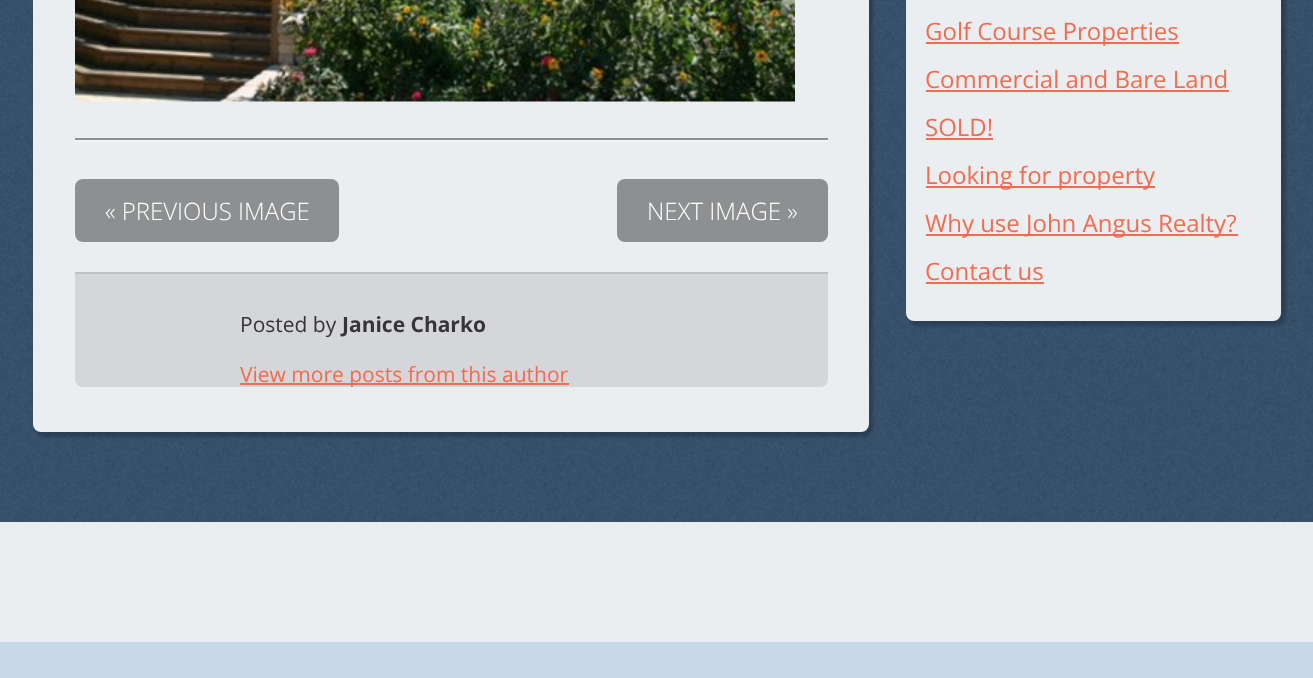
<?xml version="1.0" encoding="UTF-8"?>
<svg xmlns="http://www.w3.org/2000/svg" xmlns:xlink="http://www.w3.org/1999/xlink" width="1313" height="678">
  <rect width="100%" height="100%" fill="#2b4c6c" />
  <image x="0" y="0" width="1313" height="642" xlink:href="image1.png" />
  <rect x="35" y="-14" width="838" height="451" rx="9" fill="#000000" fill-opacity="0.2" filter="blur(1.5px)" />
  <rect x="33" y="-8" width="836" height="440" rx="8" fill="#ebeef1" />
  <image x="75" y="0" width="720" height="102" xlink:href="image2.png" />
  <rect x="75" y="138" width="753" height="2" fill="#8d8f91" />
  <rect x="75" y="140" width="753" height="2" fill="#f1f3f5" />
  <rect x="75" y="179" width="264" height="63" rx="8" fill="#8d8f91" />
  <rect x="617" y="179" width="211" height="63" rx="8" fill="#8d8f91" />
  <path d="M 75 272 h 753 v 107 c 0 4.5 -3.5 8 -8 8 h -737 c -4.5 0 -8 -3.5 -8 -8 z" fill="#d4d6d9" />
  <rect x="75" y="272" width="753" height="2" fill="#bfc1c3" />
  <rect x="240" y="383" width="329" height="2" fill="#f26c4f" />
  <rect x="908" y="-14" width="378" height="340" rx="9" fill="#000000" fill-opacity="0.2" filter="blur(1.5px)" />
  <rect x="906" y="-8" width="375" height="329" rx="8" fill="#ebeef1" />
  <rect x="926" y="42" width="253" height="2" fill="#f26c4f" />
  <rect x="926" y="90" width="303" height="2" fill="#f26c4f" />
  <rect x="926" y="138" width="67" height="2" fill="#f26c4f" />
  <rect x="926" y="186" width="229" height="2" fill="#f26c4f" />
  <rect x="926" y="234" width="312" height="2" fill="#f26c4f" />
  <rect x="926" y="282" width="118" height="2" fill="#f26c4f" />
  <rect y="522" width="1313" height="120" fill="#ffffff" fill-opacity="0.9" />
  <rect y="642" width="1313" height="36" fill="#c8d7e5" />
  <text x="105" y="220" style="font-family: Open Sans; font-size: 24px; font-weight: 300; fill: #ffffff">« PREVIOUS IMAGE</text>
  <text x="647" y="220" style="font-family: Open Sans; font-size: 24px; font-weight: 300; fill: #ffffff">NEXT IMAGE »</text>
  <text x="240" y="332" style="font-family: Open Sans; font-size: 21px; fill: #363636">Posted by</text>
  <text x="342" y="332" style="font-family: Open Sans; font-size: 21px; font-weight: bold; fill: #363636">Janice Charko</text>
  <text x="240" y="382" style="font-family: Open Sans; font-size: 21px; fill: #f26c4f">View more posts from this author</text>
  <text x="925" y="40" style="font-family: Open Sans; font-size: 24px; fill: #f26c4f">Golf Course Properties</text>
  <text x="925" y="88" style="font-family: Open Sans; font-size: 24px; fill: #f26c4f">Commercial and Bare Land</text>
  <text x="925" y="136" style="font-family: Open Sans; font-size: 24px; fill: #f26c4f">SOLD!</text>
  <text x="925" y="184" style="font-family: Open Sans; font-size: 24px; fill: #f26c4f">Looking for property</text>
  <text x="925" y="232" style="font-family: Open Sans; font-size: 24px; fill: #f26c4f">Why use John Angus Realty?</text>
  <text x="925" y="280" style="font-family: Open Sans; font-size: 24px; fill: #f26c4f">Contact us</text>
</svg>
